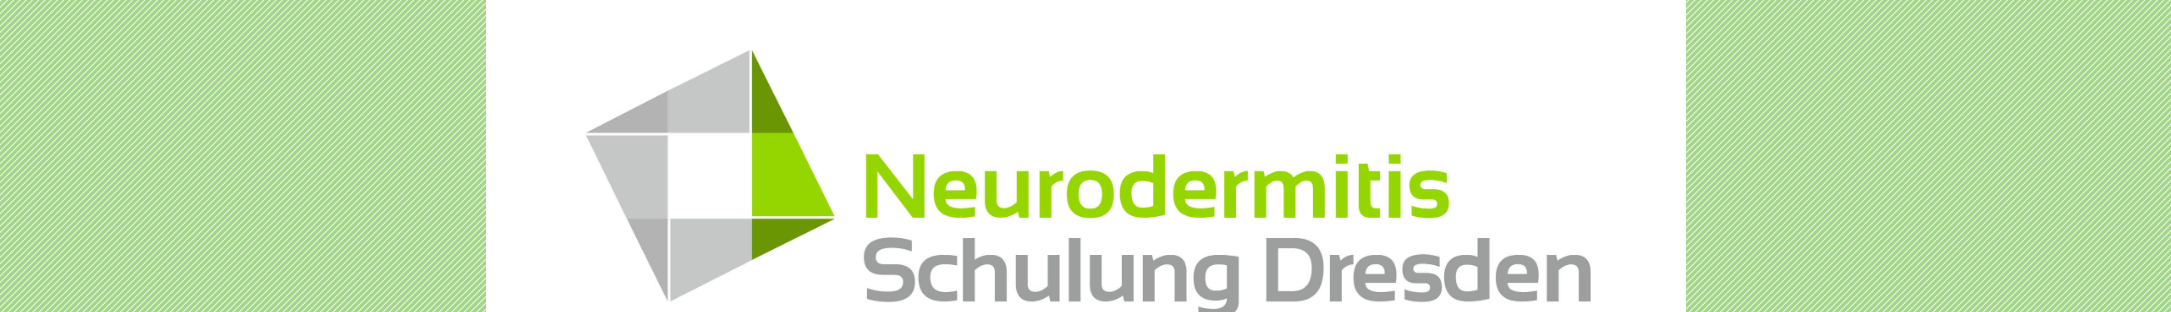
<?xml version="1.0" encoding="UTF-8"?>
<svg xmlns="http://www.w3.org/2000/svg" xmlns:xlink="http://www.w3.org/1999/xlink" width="2171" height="312">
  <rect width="100%" height="100%" fill="#a2d588" />
  <image x="0" y="0" width="2171" height="312" xlink:href="image1.png" />
  <rect x="486" width="1200" height="312" fill="#ffffff" />
  <image x="585" y="49" width="1006" height="263" xlink:href="image2.png" />
</svg>
